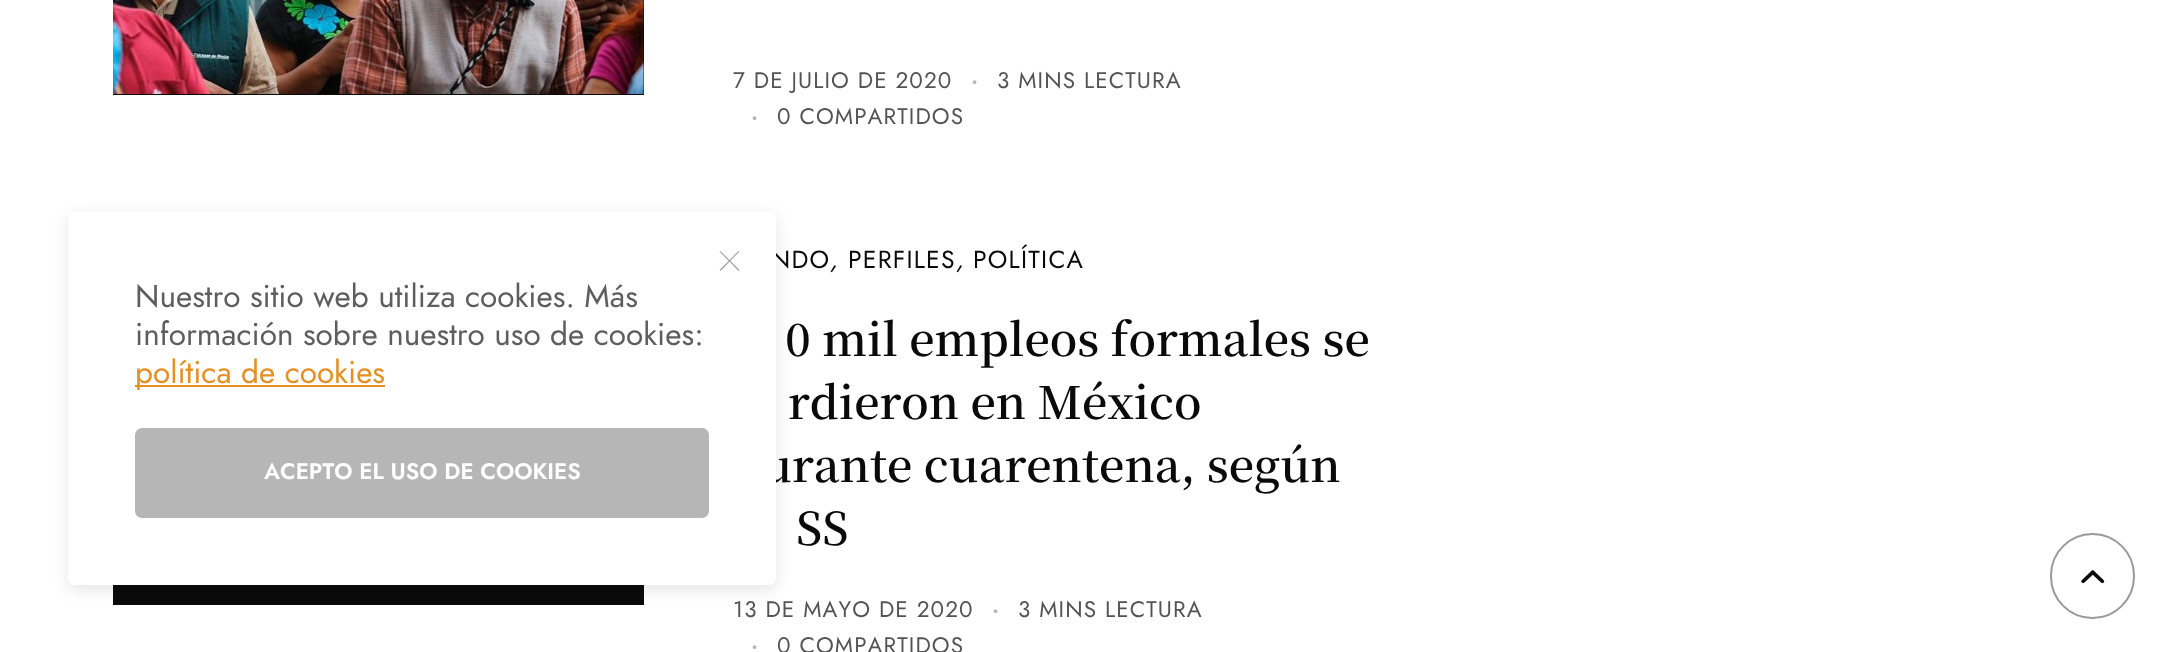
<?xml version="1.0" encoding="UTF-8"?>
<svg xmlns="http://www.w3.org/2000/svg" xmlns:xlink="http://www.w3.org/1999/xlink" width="2167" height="652">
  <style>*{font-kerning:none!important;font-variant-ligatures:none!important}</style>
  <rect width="100%" height="100%" fill="#ffffff" />
  <rect x="113" y="585" width="531" height="20" fill="#0a0a0a" />
  <rect x="68" y="216" width="708" height="374" rx="7" fill="#000000" fill-opacity="0.1" filter="blur(8px)" />
  <rect x="113" width="531" height="95" fill="#0a0a0a" />
  <image x="113" y="0" width="531" height="94" xlink:href="image1.png" />
  <rect x="2051" y="534" width="83" height="84" rx="41.5" fill="none" stroke="#999999" stroke-width="2" />
  <image x="2081" y="570" width="24" height="14" xlink:href="image2.png" />
  <text x="733" y="88" style="font-family: Jost; font-size: 22.5px; letter-spacing: 1.1px; fill: #545454">7 DE JULIO DE 2020</text>
  <text x="971" y="88" style="font-family: Jost; font-size: 22.5px; font-weight: 600; letter-spacing: 1.1px; fill: #b5b5b5">·</text>
  <text x="997" y="88" style="font-family: Jost; font-size: 22.5px; letter-spacing: 1.1px; fill: #545454">3 MINS LECTURA</text>
  <text x="751" y="124" style="font-family: Jost; font-size: 22.5px; font-weight: 600; letter-spacing: 1.1px; fill: #b5b5b5">·</text>
  <text x="777" y="124" style="font-family: Jost; font-size: 22.5px; letter-spacing: 1.1px; fill: #545454">0 COMPARTIDOS</text>
  <text x="771" y="268" style="font-family: Jost; font-size: 24.75px; letter-spacing: 1.25px; fill: #0a0a0a">NDO</text>
  <text x="830" y="268" style="font-family: Jost; font-size: 24.75px; font-style: italic; letter-spacing: 1.25px; fill: #0a0a0a">,</text>
  <text x="848" y="268" style="font-family: Jost; font-size: 24.75px; letter-spacing: 1.25px; fill: #0a0a0a">PERFILES</text>
  <text x="956" y="268" style="font-family: Jost; font-size: 24.75px; font-style: italic; letter-spacing: 1.25px; fill: #0a0a0a">,</text>
  <text x="973" y="268" style="font-family: Jost; font-size: 24.75px; letter-spacing: 1.25px; fill: #0a0a0a">POLÍTICA</text>
  <text x="785" y="356" style="font-family: Noto Serif KR; font-size: 45px; font-weight: 600; fill: #0a0a0a">0 mil empleos formales se</text>
  <text x="788" y="419" style="font-family: Noto Serif KR; font-size: 45px; font-weight: 600; fill: #0a0a0a">rdieron en México</text>
  <text x="762" y="482" style="font-family: Noto Serif KR; font-size: 45px; font-weight: 600; fill: #0a0a0a">urante cuarentena, según</text>
  <rect x="68" y="212" width="708" height="373" rx="7" fill="#ffffff" />
  <path d="M 720.5 251 l 19 19 l -1 1 l -19 -19.5 z" fill="#a3a3a3" />
  <path d="M 719.5 270 l 19 -19 l 1 0.5 l -19 19.5 z" fill="#a3a3a3" />
  <rect x="135" y="428" width="574" height="90" rx="7" fill="#b6b6b6" />
  <text x="264" y="479" style="font-family: Jost; font-size: 22.5px; font-weight: 600; fill: #ffffff">ACEPTO EL USO DE COOKIES</text>
  <rect x="135" y="385" width="250" height="2" fill="#e49024" />
  <text x="135" y="383" style="font-family: Jost; font-size: 31.5px; fill: #e49024">política de cookies</text>
  <text x="135" y="345" style="font-family: Jost; font-size: 31.5px; fill: #5e5e5e">información sobre nuestro uso de cookies:</text>
  <text x="135" y="307" style="font-family: Jost; font-size: 31.5px; fill: #5e5e5e">Nuestro sitio web utiliza cookies. Más</text>
  <text x="796" y="545" style="font-family: Noto Serif KR; font-size: 45px; font-weight: 600; fill: #0a0a0a">SS</text>
  <text x="733" y="617" style="font-family: Jost; font-size: 22.5px; letter-spacing: 1.1px; fill: #545454">13 DE MAYO DE 2020</text>
  <text x="992" y="617" style="font-family: Jost; font-size: 22.5px; font-weight: 600; letter-spacing: 1.1px; fill: #b5b5b5">·</text>
  <text x="1018" y="617" style="font-family: Jost; font-size: 22.5px; letter-spacing: 1.1px; fill: #545454">3 MINS LECTURA</text>
  <text x="751" y="653" style="font-family: Jost; font-size: 22.5px; font-weight: 600; letter-spacing: 1.1px; fill: #b5b5b5">·</text>
  <text x="777" y="653" style="font-family: Jost; font-size: 22.5px; letter-spacing: 1.1px; fill: #545454">0 COMPARTIDOS</text>
</svg>
